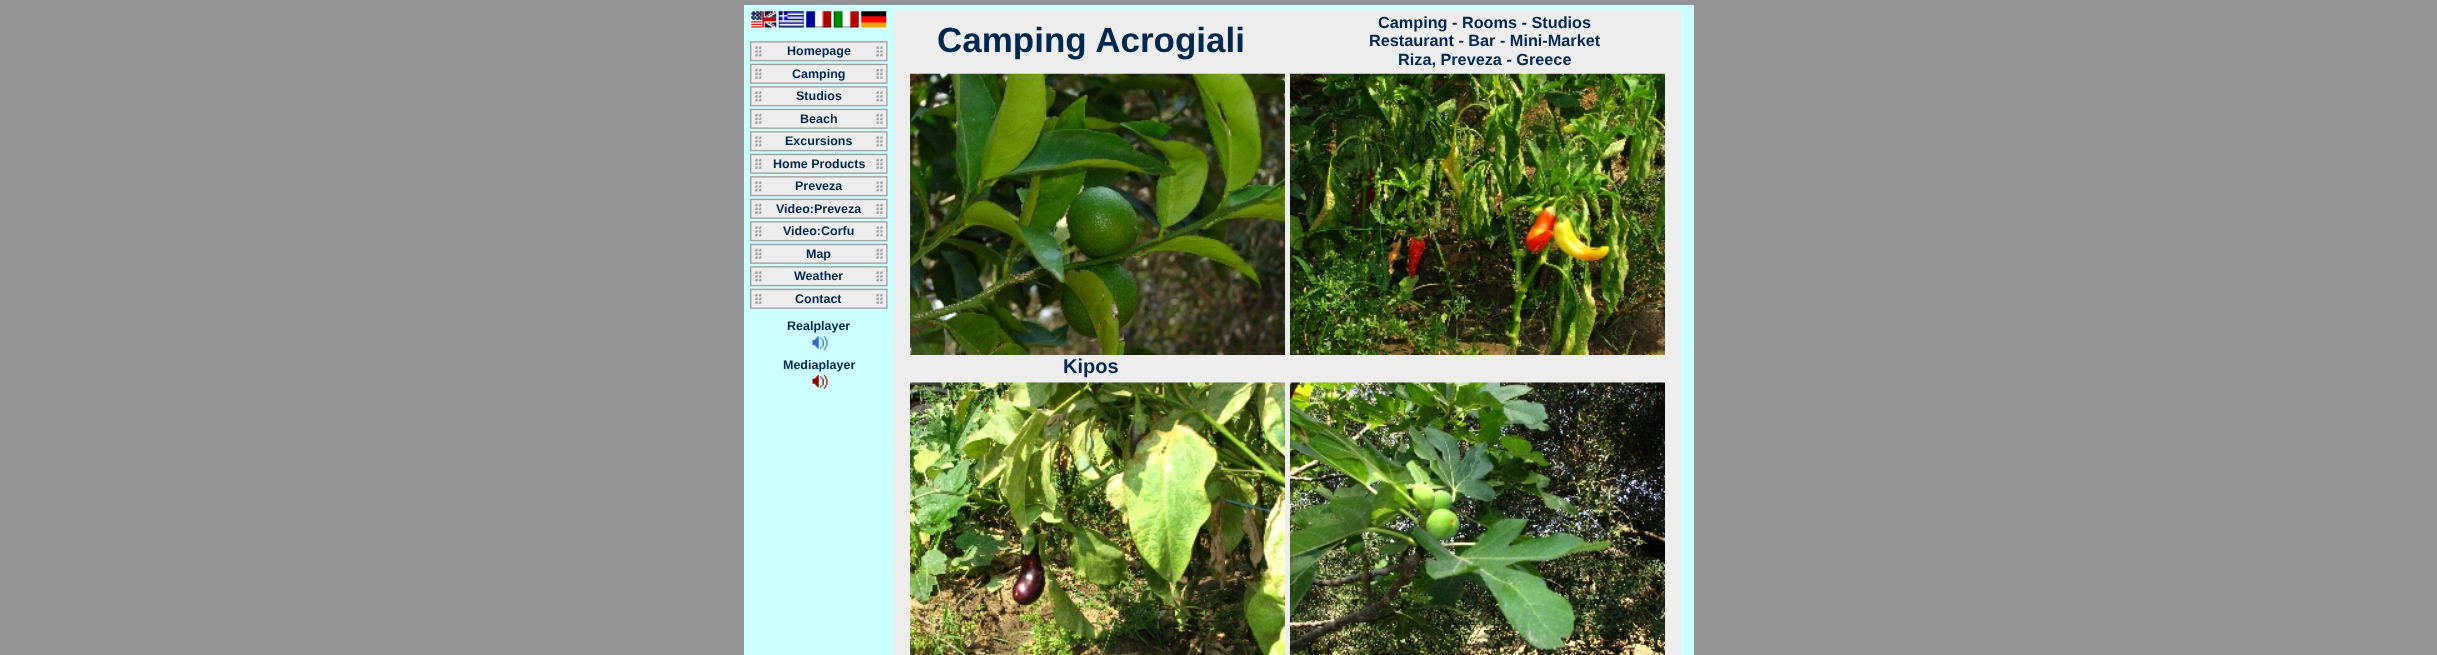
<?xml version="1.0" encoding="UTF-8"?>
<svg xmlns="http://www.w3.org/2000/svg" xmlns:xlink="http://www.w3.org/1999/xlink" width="2437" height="655">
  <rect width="100%" height="100%" fill="#939393" />
  <rect x="744" y="5" width="950" height="5" fill="#ccffff" />
  <rect x="744" y="10" width="150" height="645" fill="#ccffff" />
  <image x="751" y="11" width="26" height="17" xlink:href="image1.png" />
  <image x="778" y="11" width="26" height="17" xlink:href="image2.png" />
  <image x="806" y="11" width="26" height="17" xlink:href="image3.png" />
  <image x="833" y="11" width="26" height="17" xlink:href="image4.png" />
  <image x="861" y="11" width="26" height="17" xlink:href="image5.png" />
  <rect x="750" y="41" width="138" height="20" fill="#ededed" />
  <image x="750" y="41" width="138" height="21" xlink:href="image6.png" />
  <rect x="750" y="64" width="138" height="20" fill="#ededed" />
  <image x="750" y="63" width="138" height="21" xlink:href="image7.png" />
  <rect x="750" y="86" width="138" height="20" fill="#ededed" />
  <image x="750" y="86" width="138" height="21" xlink:href="image6.png" />
  <rect x="750" y="109" width="138" height="20" fill="#ededed" />
  <image x="750" y="108" width="138" height="21" xlink:href="image7.png" />
  <rect x="750" y="131" width="138" height="20" fill="#ededed" />
  <image x="750" y="131" width="138" height="21" xlink:href="image6.png" />
  <rect x="750" y="154" width="138" height="20" fill="#ededed" />
  <image x="750" y="153" width="138" height="21" xlink:href="image7.png" />
  <rect x="750" y="176" width="138" height="20" fill="#ededed" />
  <image x="750" y="176" width="138" height="21" xlink:href="image6.png" />
  <rect x="750" y="199" width="138" height="20" fill="#ededed" />
  <image x="750" y="198" width="138" height="21" xlink:href="image7.png" />
  <rect x="750" y="221" width="138" height="20" fill="#ededed" />
  <image x="750" y="221" width="138" height="21" xlink:href="image6.png" />
  <rect x="750" y="244" width="138" height="20" fill="#ededed" />
  <image x="750" y="243" width="138" height="21" xlink:href="image7.png" />
  <rect x="750" y="266" width="138" height="20" fill="#ededed" />
  <image x="750" y="266" width="138" height="21" xlink:href="image6.png" />
  <rect x="750" y="289" width="138" height="20" fill="#ededed" />
  <image x="750" y="288" width="138" height="21" xlink:href="image8.png" />
  <image x="812" y="336" width="16" height="14" xlink:href="image9.png" />
  <image x="812" y="375" width="16" height="14" xlink:href="image10.png" />
  <rect x="1681" y="10" width="13" height="645" fill="#ccffff" />
  <rect x="894" y="10" width="787" height="645" fill="#ededed" />
  <image x="1290" y="73" width="375" height="282" xlink:href="image11.png" />
  <image x="910" y="73" width="375" height="282" xlink:href="image12.png" />
  <image x="910" y="382" width="375" height="273" xlink:href="image13.png" />
  <image x="1290" y="382" width="375" height="273" xlink:href="image14.png" />
  <text x="787" y="55" style="font-family: Liberation Sans; font-size: 12.5px; font-weight: bold; fill: #00274e">Homepage</text>
  <text x="792" y="78" style="font-family: Liberation Sans; font-size: 12.5px; font-weight: bold; fill: #00274e">Camping</text>
  <text x="796" y="100" style="font-family: Liberation Sans; font-size: 12.5px; font-weight: bold; fill: #00274e">Studios</text>
  <text x="800" y="123" style="font-family: Liberation Sans; font-size: 12.5px; font-weight: bold; fill: #00274e">Beach</text>
  <text x="785" y="145" style="font-family: Liberation Sans; font-size: 12.5px; font-weight: bold; fill: #00274e">Excursions</text>
  <text x="773" y="168" style="font-family: Liberation Sans; font-size: 12.5px; font-weight: bold; fill: #00274e">Home Products</text>
  <text x="795" y="190" style="font-family: Liberation Sans; font-size: 12.5px; font-weight: bold; fill: #00274e">Preveza</text>
  <text x="776" y="213" style="font-family: Liberation Sans; font-size: 12.5px; font-weight: bold; fill: #00274e">Video:Preveza</text>
  <text x="783" y="235" style="font-family: Liberation Sans; font-size: 12.5px; font-weight: bold; fill: #00274e">Video:Corfu</text>
  <text x="806" y="258" style="font-family: Liberation Sans; font-size: 12.5px; font-weight: bold; fill: #00274e">Map</text>
  <text x="794" y="280" style="font-family: Liberation Sans; font-size: 12.5px; font-weight: bold; fill: #00274e">Weather</text>
  <text x="795" y="303" style="font-family: Liberation Sans; font-size: 12.5px; font-weight: bold; fill: #00274e">Contact</text>
  <text x="787" y="330" style="font-family: Liberation Sans; font-size: 12.5px; font-weight: bold; fill: #00274e">Realplayer</text>
  <text x="783" y="369" style="font-family: Liberation Sans; font-size: 12.5px; font-weight: bold; fill: #00274e">Mediaplayer</text>
  <text x="937" y="52" style="font-family: Liberation Sans; font-size: 35px; font-weight: bold; fill: #00274e">Camping Acrogiali</text>
  <text x="1378" y="28" style="font-family: Liberation Sans; font-size: 16.25px; font-weight: bold; fill: #00274e">Camping - Rooms - Studios</text>
  <text x="1369" y="46" style="font-family: Liberation Sans; font-size: 16.25px; font-weight: bold; fill: #00274e">Restaurant - Bar - Mini-Market</text>
  <text x="1398" y="65" style="font-family: Liberation Sans; font-size: 16.25px; font-weight: bold; fill: #00274e">Riza, Preveza - Greece</text>
  <text x="1063" y="373" style="font-family: Liberation Sans; font-size: 20px; font-weight: bold; fill: #00274e">Kipos</text>
</svg>
